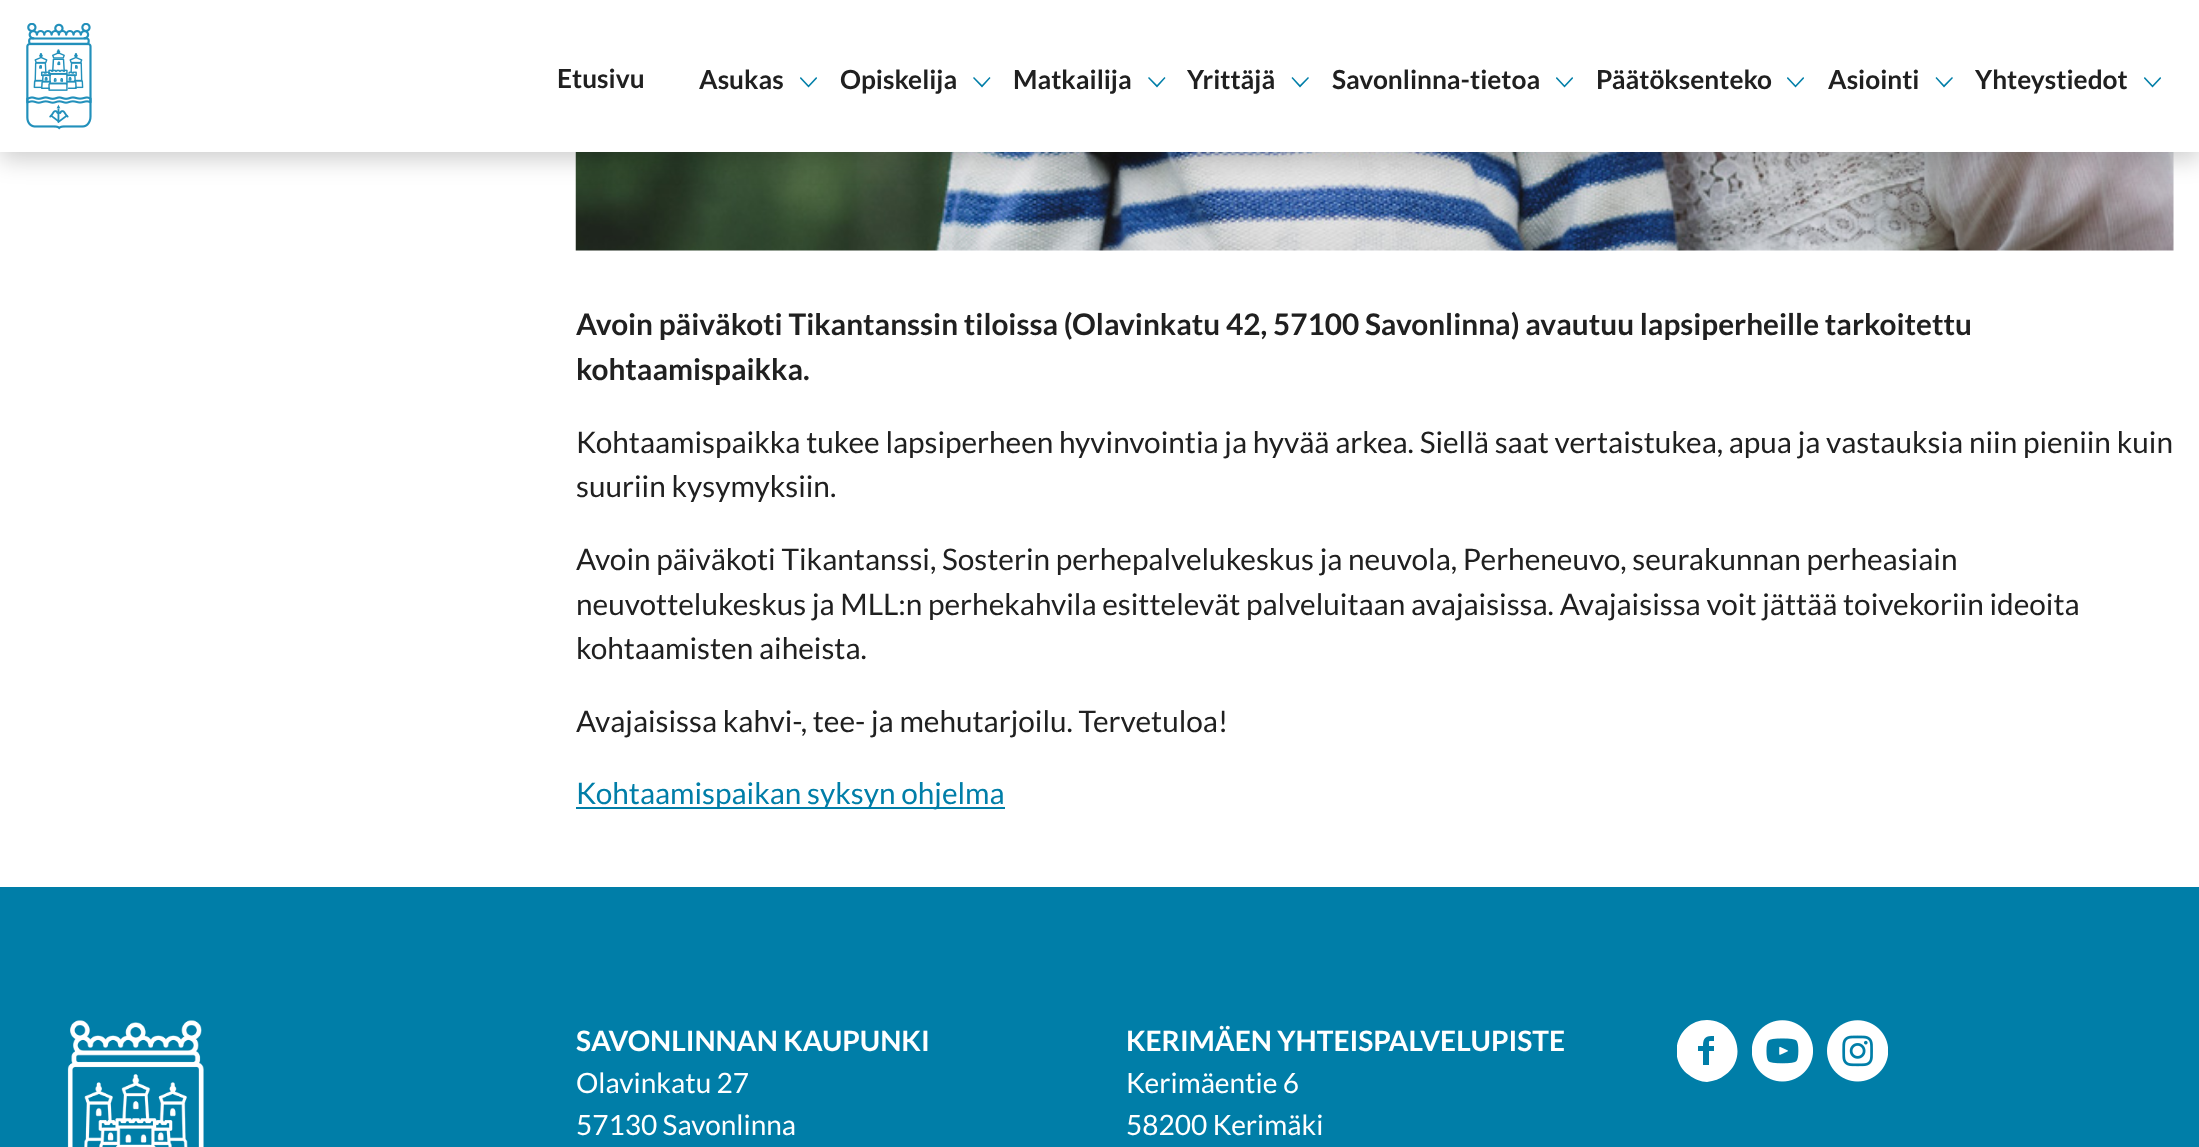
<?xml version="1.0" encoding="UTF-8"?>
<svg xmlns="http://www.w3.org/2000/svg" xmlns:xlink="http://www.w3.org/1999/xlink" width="2199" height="1147">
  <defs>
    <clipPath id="clip1"><rect x="1677" y="1020" width="61" height="62" /></clipPath>
  </defs>
  <rect width="100%" height="100%" fill="#ffffff" />
  <image x="575" y="152" width="1599" height="99" xlink:href="image3.png" />
  <rect y="7" width="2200" height="152" fill="#000000" fill-opacity="0.2" filter="blur(12px)" />
  <rect width="2199" height="152" fill="#ffffff" />
  <image x="26" y="23" width="66" height="107" xlink:href="image1.png" />
  <image x="800" y="77" width="17" height="11" xlink:href="image2.png" />
  <path d="M 989.5 77 l 1 1 l -8.5 9.5 l -9 -9.5 l 1 -1 l 8 8 z" fill="#007ea8" fill-rule="evenodd" />
  <path d="M 1164.5 77 l 1 1 l -8.5 9.5 l -9 -9.5 l 1 -1 l 8 8 z" fill="#007ea8" fill-rule="evenodd" />
  <path d="M 1308 77 l 1 1 l -9 9.5 l -8.5 -9.5 l 1 -1 l 7.5 8 z" fill="#007ea8" fill-rule="evenodd" />
  <image x="1556" y="77" width="17" height="11" xlink:href="image2.png" />
  <image x="1787" y="77" width="17" height="11" xlink:href="image2.png" />
  <path d="M 1952 77 l 1 1 l -9 9.5 l -8.5 -9.5 l 1 -1 l 7.5 8 z" fill="#007ea8" fill-rule="evenodd" />
  <image x="2144" y="77" width="17" height="11" xlink:href="image2.png" />
  <rect x="576" y="807" width="429" height="2" fill="#007ea8" />
  <rect y="887" width="2199" height="260" fill="#007ea8" />
  <image x="67" y="1020" width="137" height="127" xlink:href="image4.png" />
  <g clip-path="url(#clip1)">
    <path d="M 1714 1041 c -6 0 -5 -1 -5 5 h 5 v 5 h -5 v 14 h -6 v -14 h -5 v -5 h 5 c 0 -9 3 -10 11 -10 z m -7 -21 c -29 0 -42 38 -18 55 c 5 4 12 7 18 7 c 7 -1 13 -3 18 -7 c 24 -17 11 -55 -18 -55 z" fill="#ffffff" />
  </g>
  <image x="1752" y="1020" width="61" height="62" xlink:href="image5.png" />
  <image x="1827" y="1020" width="61" height="62" xlink:href="image6.png" />
  <text x="557" y="88" style="font-family: Lato; font-size: 26.25px; font-weight: bold; fill: #202020">Etusivu</text>
  <text x="699" y="89" style="font-family: Lato; font-size: 26.25px; font-weight: bold; fill: #202020">Asukas</text>
  <text x="840" y="89" style="font-family: Lato; font-size: 26.25px; font-weight: bold; fill: #202020">Opiskelija</text>
  <text x="1013" y="89" style="font-family: Lato; font-size: 26.25px; font-weight: bold; fill: #202020">Matkailija</text>
  <text x="1187" y="89" style="font-family: Lato; font-size: 26.25px; font-weight: bold; fill: #202020">Yrittäjä</text>
  <text x="1332" y="89" style="font-family: Lato; font-size: 26.25px; font-weight: bold; fill: #202020">Savonlinna-tietoa</text>
  <text x="1596" y="89" style="font-family: Lato; font-size: 26.25px; font-weight: bold; fill: #202020">Päätöksenteko</text>
  <text x="1828" y="89" style="font-family: Lato; font-size: 26.25px; font-weight: bold; fill: #202020">Asiointi</text>
  <text x="1975" y="89" style="font-family: Lato; font-size: 26.25px; font-weight: bold; fill: #202020">Yhteystiedot</text>
  <text x="576" y="335" style="font-family: Lato; font-size: 29.75px; font-weight: bold; fill: #202020">Avoin päiväkoti Tikantanssin tiloissa (Olavinkatu 42, 57100 Savonlinna) avautuu lapsiperheille tarkoitettu</text>
  <text x="576" y="380" style="font-family: Lato; font-size: 29.75px; font-weight: bold; fill: #202020">kohtaamispaikka.</text>
  <text x="576" y="453" style="font-family: Lato; font-size: 29.75px; fill: #202020">Kohtaamispaikka tukee lapsiperheen hyvinvointia ja hyvää arkea. Siellä saat vertaistukea, apua ja vastauksia niin pieniin kuin</text>
  <text x="576" y="497" style="font-family: Lato; font-size: 29.75px; fill: #202020">suuriin kysymyksiin.</text>
  <text x="576" y="570" style="font-family: Lato; font-size: 29.75px; fill: #202020">Avoin päiväkoti Tikantanssi, Sosterin perhepalvelukeskus ja neuvola, Perheneuvo, seurakunnan perheasiain</text>
  <text x="576" y="615" style="font-family: Lato; font-size: 29.75px; fill: #202020">neuvottelukeskus ja MLL:n perhekahvila esittelevät palveluitaan avajaisissa. Avajaisissa voit jättää toivekoriin ideoita</text>
  <text x="576" y="659" style="font-family: Lato; font-size: 29.75px; fill: #202020">kohtaamisten aiheista.</text>
  <text x="576" y="732" style="font-family: Lato; font-size: 29.75px; fill: #202020">Avajaisissa kahvi-, tee- ja mehutarjoilu. Tervetuloa!</text>
  <text x="576" y="804" style="font-family: Lato; font-size: 29.75px; fill: #007ea8">Kohtaamispaikan syksyn ohjelma</text>
  <text x="576" y="1051" style="font-family: Lato; font-size: 28px; font-weight: bold; fill: #ffffff">SAVONLINNAN KAUPUNKI</text>
  <text x="576" y="1093" style="font-family: Lato; font-size: 28px; fill: #ffffff">Olavinkatu 27</text>
  <text x="576" y="1135" style="font-family: Lato; font-size: 28px; fill: #ffffff">57130 Savonlinna</text>
  <text x="1126" y="1051" style="font-family: Lato; font-size: 28px; font-weight: bold; fill: #ffffff">KERIMÄEN YHTEISPALVELUPISTE</text>
  <text x="1126" y="1093" style="font-family: Lato; font-size: 28px; fill: #ffffff">Kerimäentie 6</text>
  <text x="1126" y="1135" style="font-family: Lato; font-size: 28px; fill: #ffffff">58200 Kerimäki</text>
</svg>
